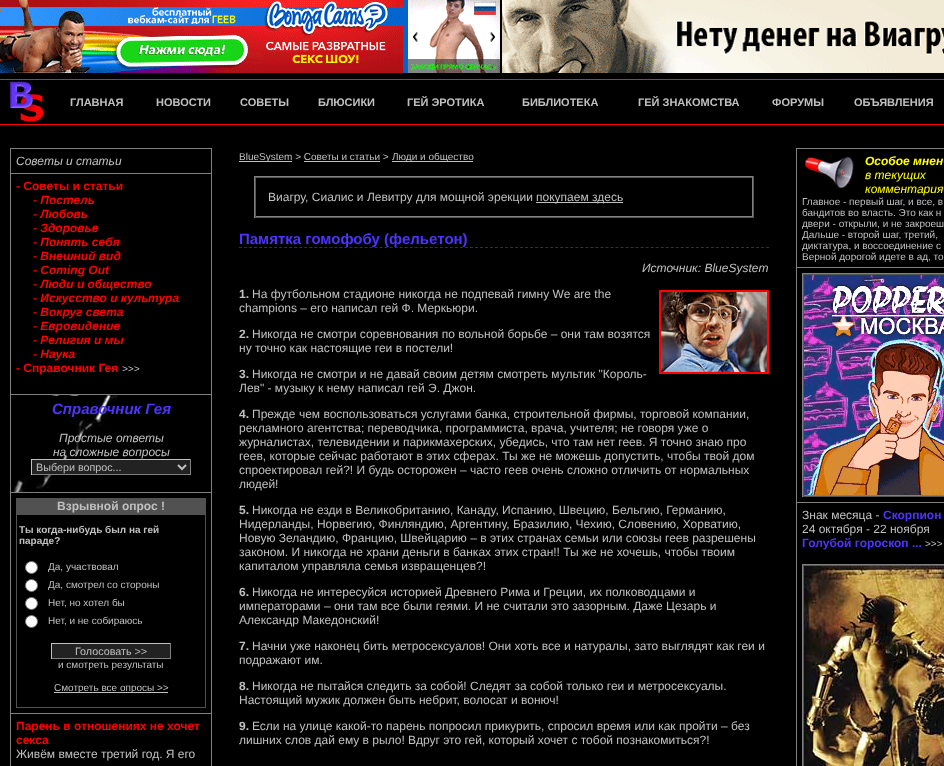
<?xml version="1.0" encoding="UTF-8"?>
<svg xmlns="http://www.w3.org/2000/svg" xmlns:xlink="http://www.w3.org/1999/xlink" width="944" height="766">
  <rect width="100%" height="100%" fill="#000000" />
  <image x="0" y="0" width="500" height="73" xlink:href="image1.png" />
  <image x="502" y="0" width="442" height="73" xlink:href="image2.png" />
  <rect y="79" width="944" height="1" fill="#6633ff" />
  <image x="8" y="80" width="40" height="44" xlink:href="image3.png" />
  <rect y="124" width="944" height="1" fill="#ff0000" />
  <rect x="10" y="148" width="202" height="1" fill="#808080" />
  <rect x="211" y="148" width="1" height="618" fill="#808080" />
  <rect x="10" y="148" width="1" height="618" fill="#808080" />
  <rect x="10" y="173" width="202" height="1" fill="#808080" />
  <image x="13" y="395" width="105" height="97" xlink:href="image4.png" />
  <rect x="10" y="394" width="202" height="1" fill="#808080" />
  <rect x="32" y="460" width="158" height="14" fill="#222222" />
  <rect x="31" y="459" width="160" height="1" fill="#c0c0c0" />
  <rect x="190" y="459" width="1" height="16" fill="#808080" />
  <rect x="31" y="474" width="160" height="1" fill="#808080" />
  <rect x="31" y="459" width="1" height="16" fill="#c0c0c0" />
  <path d="M 178 465 l 4 4 l 4 -4" fill="none" stroke="#c0c0c0" stroke-width="2" />
  <rect x="10" y="492" width="202" height="1" fill="#808080" />
  <rect x="16" y="498" width="190" height="210" fill="#515151" />
  <rect x="17" y="515" width="188" height="192" fill="#000000" />
  <circle cx="31.5" cy="567.5" r="6" fill="#ffffff" stroke="#767676" />
  <circle cx="31.5" cy="585.5" r="6" fill="#ffffff" stroke="#767676" />
  <circle cx="31.5" cy="603.5" r="6" fill="#ffffff" stroke="#767676" />
  <circle cx="31.5" cy="621.5" r="6" fill="#ffffff" stroke="#767676" />
  <rect x="52" y="644" width="118" height="14" fill="#222222" />
  <rect x="51" y="643" width="120" height="1" fill="#c0c0c0" />
  <rect x="170" y="643" width="1" height="16" fill="#808080" />
  <rect x="51" y="658" width="120" height="1" fill="#808080" />
  <rect x="51" y="643" width="1" height="16" fill="#c0c0c0" />
  <rect x="54" y="692" width="114" height="1" fill="#c0c0c0" />
  <rect x="10" y="713" width="202" height="1" fill="#808080" />
  <rect x="239" y="161" width="53" height="1" fill="#c0c0c0" />
  <rect x="304" y="161" width="76" height="1" fill="#c0c0c0" />
  <rect x="392" y="161" width="81" height="1" fill="#c0c0c0" />
  <rect x="254" y="176" width="500" height="1" fill="#808080" />
  <rect x="753" y="176" width="1" height="42" fill="#555555" />
  <rect x="254" y="217" width="500" height="1" fill="#555555" />
  <rect x="254" y="176" width="1" height="42" fill="#808080" />
  <rect x="255" y="177" width="498" height="1" fill="#555555" />
  <rect x="752" y="177" width="1" height="40" fill="#808080" />
  <rect x="255" y="216" width="498" height="1" fill="#808080" />
  <rect x="255" y="177" width="1" height="40" fill="#555555" />
  <rect x="536" y="202" width="87" height="1" fill="#c0c0c0" />
  <path d="M 239 247.5 h 530" fill="none" stroke="#333333" stroke-dasharray="3 2.02" />
  <image x="659" y="290" width="110" height="84" xlink:href="image5.png" />
  <rect x="796" y="148" width="148" height="1" fill="#808080" />
  <rect x="796" y="148" width="1" height="618" fill="#808080" />
  <image x="805" y="156" width="49" height="33" xlink:href="image6.png" />
  <rect x="796" y="267" width="148" height="1" fill="#808080" />
  <rect x="802" y="273" width="142" height="1" fill="#808080" />
  <rect x="802" y="496" width="142" height="1" fill="#555555" />
  <rect x="802" y="273" width="1" height="224" fill="#808080" />
  <rect x="803" y="274" width="141" height="1" fill="#555555" />
  <rect x="803" y="495" width="141" height="1" fill="#808080" />
  <rect x="803" y="274" width="1" height="222" fill="#555555" />
  <image x="804" y="275" width="140" height="220" xlink:href="image7.png" />
  <rect x="796" y="502" width="148" height="1" fill="#808080" />
  <rect x="802" y="564" width="142" height="1" fill="#808080" />
  <rect x="802" y="564" width="1" height="202" fill="#808080" />
  <rect x="803" y="565" width="141" height="1" fill="#555555" />
  <rect x="803" y="565" width="1" height="201" fill="#555555" />
  <image x="804" y="566" width="140" height="200" xlink:href="image8.png" />
  <text x="70" y="106" style="font-family: Liberation Sans; font-size: 11px; font-weight: bold; fill: #c0c0c0">ГЛАВНАЯ</text>
  <text x="156" y="106" style="font-family: Liberation Sans; font-size: 11px; font-weight: bold; fill: #c0c0c0">НОВОСТИ</text>
  <text x="240" y="106" style="font-family: Liberation Sans; font-size: 11px; font-weight: bold; fill: #c0c0c0">СОВЕТЫ</text>
  <text x="318" y="106" style="font-family: Liberation Sans; font-size: 11px; font-weight: bold; fill: #c0c0c0">БЛЮСИКИ</text>
  <text x="407" y="106" style="font-family: Liberation Sans; font-size: 11px; font-weight: bold; fill: #c0c0c0">ГЕЙ ЭРОТИКА</text>
  <text x="522" y="106" style="font-family: Liberation Sans; font-size: 11px; font-weight: bold; fill: #c0c0c0">БИБЛИОТЕКА</text>
  <text x="638" y="106" style="font-family: Liberation Sans; font-size: 11px; font-weight: bold; fill: #c0c0c0">ГЕЙ ЗНАКОМСТВА</text>
  <text x="772" y="106" style="font-family: Liberation Sans; font-size: 11px; font-weight: bold; fill: #c0c0c0">ФОРУМЫ</text>
  <text x="854" y="106" style="font-family: Liberation Sans; font-size: 11px; font-weight: bold; fill: #c0c0c0">ОБЪЯВЛЕНИЯ</text>
  <text x="16" y="165" style="font-family: Liberation Sans; font-size: 12px; font-style: italic; fill: #c0c0c0">Советы и статьи</text>
  <text x="16" y="190" style="font-family: Liberation Sans; font-size: 12px; font-weight: bold; fill: #ff0000">- Советы и статьи</text>
  <text x="33" y="204" style="font-family: Liberation Sans; font-size: 12px; font-weight: bold; font-style: italic; fill: #ff0000">- Постель</text>
  <text x="33" y="218" style="font-family: Liberation Sans; font-size: 12px; font-weight: bold; font-style: italic; fill: #ff0000">- Любовь</text>
  <text x="33" y="232" style="font-family: Liberation Sans; font-size: 12px; font-weight: bold; font-style: italic; fill: #ff0000">- Здоровье</text>
  <text x="33" y="246" style="font-family: Liberation Sans; font-size: 12px; font-weight: bold; font-style: italic; fill: #ff0000">- Понять себя</text>
  <text x="33" y="260" style="font-family: Liberation Sans; font-size: 12px; font-weight: bold; font-style: italic; fill: #ff0000">- Внешний вид</text>
  <text x="33" y="274" style="font-family: Liberation Sans; font-size: 12px; font-weight: bold; font-style: italic; fill: #ff0000">- Coming Out</text>
  <text x="33" y="288" style="font-family: Liberation Sans; font-size: 12px; font-weight: bold; font-style: italic; fill: #ff0000">- Люди и общество</text>
  <text x="33" y="302" style="font-family: Liberation Sans; font-size: 12px; font-weight: bold; font-style: italic; fill: #ff0000">- Искусство и культура</text>
  <text x="33" y="316" style="font-family: Liberation Sans; font-size: 12px; font-weight: bold; font-style: italic; fill: #ff0000">- Вокруг света</text>
  <text x="33" y="330" style="font-family: Liberation Sans; font-size: 12px; font-weight: bold; font-style: italic; fill: #ff0000">- Евровидение</text>
  <text x="33" y="344" style="font-family: Liberation Sans; font-size: 12px; font-weight: bold; font-style: italic; fill: #ff0000">- Религия и мы</text>
  <text x="33" y="358" style="font-family: Liberation Sans; font-size: 12px; font-weight: bold; font-style: italic; fill: #ff0000">- Наука</text>
  <text x="16" y="372" style="font-family: Liberation Sans; font-size: 12px; font-weight: bold; fill: #ff0000">- Справочник Гея</text>
  <text x="122" y="372" style="font-family: Liberation Sans; font-size: 10px; font-style: italic; fill: #c0c0c0">&gt;&gt;&gt;</text>
  <text x="52" y="414" style="font-family: Liberation Sans; font-size: 15px; font-weight: bold; font-style: italic; fill: #5133ff">Справочник Гея</text>
  <text x="59" y="442" style="font-family: Liberation Sans; font-size: 12px; font-style: italic; fill: #c0c0c0">Простые ответы</text>
  <text x="53" y="456" style="font-family: Liberation Sans; font-size: 12px; font-style: italic; fill: #c0c0c0">на сложные вопросы</text>
  <text x="36" y="471" style="font-family: Liberation Sans; font-size: 10.75px; fill: #c0c0c0">Выбери вопрос...</text>
  <text x="57" y="510" style="font-family: Liberation Sans; font-size: 12px; font-weight: bold; fill: #c0c0c0">Взрывной опрос !</text>
  <text x="19" y="533" style="font-family: Liberation Sans; font-size: 10px; font-weight: bold; fill: #c0c0c0">Ты когда-нибудь был на гей</text>
  <text x="19" y="544" style="font-family: Liberation Sans; font-size: 10px; font-weight: bold; fill: #c0c0c0">параде?</text>
  <text x="48" y="570" style="font-family: Liberation Sans; font-size: 10px; fill: #c0c0c0">Да, участвовал</text>
  <text x="48" y="588" style="font-family: Liberation Sans; font-size: 10px; fill: #c0c0c0">Да, смотрел со стороны</text>
  <text x="48" y="606" style="font-family: Liberation Sans; font-size: 10px; fill: #c0c0c0">Нет, но хотел бы</text>
  <text x="48" y="624" style="font-family: Liberation Sans; font-size: 10px; fill: #c0c0c0">Нет, и не собираюсь</text>
  <text x="75" y="655" style="font-family: Liberation Sans; font-size: 10.75px; fill: #c0c0c0">Голосовать &gt;&gt;</text>
  <text x="58" y="668" style="font-family: Liberation Sans; font-size: 10px; fill: #c0c0c0">и смотреть результаты</text>
  <text x="54" y="691" style="font-family: Liberation Sans; font-size: 10px; fill: #c0c0c0">Смотреть все опросы &gt;&gt;</text>
  <text x="16" y="730" style="font-family: Liberation Sans; font-size: 12px; font-weight: bold; fill: #ff0000">Парень в отношениях не хочет</text>
  <text x="16" y="744" style="font-family: Liberation Sans; font-size: 12px; font-weight: bold; fill: #ff0000">секса</text>
  <text x="16" y="758" style="font-family: Liberation Sans; font-size: 12px; fill: #c0c0c0">Живём вместе третий год. Я его</text>
  <text x="239" y="160" style="font-family: Liberation Sans; font-size: 10px; fill: #c0c0c0">BlueSystem &gt; Советы и статьи &gt;</text>
  <text x="392" y="160" style="font-family: Liberation Sans; font-size: 10px; fill: #c0c0c0">Люди и общество</text>
  <text x="268" y="201" style="font-family: Liberation Sans; font-size: 12px; fill: #c0c0c0">Виагру, Сиалис и Левитру для мощной эрекции</text>
  <text x="536" y="201" style="font-family: Liberation Sans; font-size: 12px; fill: #c0c0c0">покупаем здесь</text>
  <text x="239" y="244" style="font-family: Liberation Sans; font-size: 15px; font-weight: bold; fill: #5133ff">Памятка гомофобу (фельетон)</text>
  <text x="642" y="272" style="font-family: Liberation Sans; font-size: 12px; font-style: italic; fill: #c0c0c0">Источник: BlueSystem</text>
  <text x="239" y="298" style="font-family: Liberation Sans; font-size: 12px; font-weight: bold; fill: #c0c0c0">1.</text>
  <text x="252" y="298" style="font-family: Liberation Sans; font-size: 12px; fill: #c0c0c0">На футбольном стадионе никогда не подпевай гимну We are the</text>
  <text x="239" y="312" style="font-family: Liberation Sans; font-size: 12px; fill: #c0c0c0">champions – его написал гей Ф. Меркьюри.</text>
  <text x="239" y="338" style="font-family: Liberation Sans; font-size: 12px; font-weight: bold; fill: #c0c0c0">2.</text>
  <text x="252" y="338" style="font-family: Liberation Sans; font-size: 12px; fill: #c0c0c0">Никогда не смотри соревнования по вольной борьбе – они там возятся</text>
  <text x="239" y="352" style="font-family: Liberation Sans; font-size: 12px; fill: #c0c0c0">ну точно как настоящие геи в постели!</text>
  <text x="239" y="378" style="font-family: Liberation Sans; font-size: 12px; font-weight: bold; fill: #c0c0c0">3.</text>
  <text x="252" y="378" style="font-family: Liberation Sans; font-size: 12px; fill: #c0c0c0">Никогда не смотри и не давай своим детям смотреть мультик "Король-</text>
  <text x="239" y="392" style="font-family: Liberation Sans; font-size: 12px; fill: #c0c0c0">Лев" - музыку к нему написал гей Э. Джон.</text>
  <text x="239" y="418" style="font-family: Liberation Sans; font-size: 12px; font-weight: bold; fill: #c0c0c0">4.</text>
  <text x="252" y="418" style="font-family: Liberation Sans; font-size: 12px; fill: #c0c0c0">Прежде чем воспользоваться услугами банка, строительной фирмы, торговой компании,</text>
  <text x="239" y="432" style="font-family: Liberation Sans; font-size: 12px; fill: #c0c0c0">рекламного агентства; переводчика, программиста, врача, учителя; не говоря уже о</text>
  <text x="239" y="446" style="font-family: Liberation Sans; font-size: 12px; fill: #c0c0c0">журналистах, телевидении и парикмахерских, убедись, что там нет геев. Я точно знаю про</text>
  <text x="239" y="460" style="font-family: Liberation Sans; font-size: 12px; fill: #c0c0c0">геев, которые сейчас работают в этих сферах. Ты же не можешь допустить, чтобы твой дом</text>
  <text x="239" y="474" style="font-family: Liberation Sans; font-size: 12px; fill: #c0c0c0">спроектировал гей?! И будь осторожен – часто геев очень сложно отличить от нормальных</text>
  <text x="239" y="488" style="font-family: Liberation Sans; font-size: 12px; fill: #c0c0c0">людей!</text>
  <text x="239" y="514" style="font-family: Liberation Sans; font-size: 12px; font-weight: bold; fill: #c0c0c0">5.</text>
  <text x="252" y="514" style="font-family: Liberation Sans; font-size: 12px; fill: #c0c0c0">Никогда не езди в Великобританию, Канаду, Испанию, Швецию, Бельгию, Германию,</text>
  <text x="239" y="528" style="font-family: Liberation Sans; font-size: 12px; fill: #c0c0c0">Нидерланды, Норвегию, Финляндию, Аргентину, Бразилию, Чехию, Словению, Хорватию,</text>
  <text x="239" y="542" style="font-family: Liberation Sans; font-size: 12px; fill: #c0c0c0">Новую Зеландию, Францию, Швейцарию – в этих странах семьи или союзы геев разрешены</text>
  <text x="239" y="556" style="font-family: Liberation Sans; font-size: 12px; fill: #c0c0c0">законом. И никогда не храни деньги в банках этих стран!! Ты же не хочешь, чтобы твоим</text>
  <text x="239" y="570" style="font-family: Liberation Sans; font-size: 12px; fill: #c0c0c0">капиталом управляла семья извращенцев?!</text>
  <text x="239" y="596" style="font-family: Liberation Sans; font-size: 12px; font-weight: bold; fill: #c0c0c0">6.</text>
  <text x="252" y="596" style="font-family: Liberation Sans; font-size: 12px; fill: #c0c0c0">Никогда не интересуйся историей Древнего Рима и Греции, их полководцами и</text>
  <text x="239" y="610" style="font-family: Liberation Sans; font-size: 12px; fill: #c0c0c0">императорами – они там все были геями. И не считали это зазорным. Даже Цезарь и</text>
  <text x="239" y="624" style="font-family: Liberation Sans; font-size: 12px; fill: #c0c0c0">Александр Македонский!</text>
  <text x="239" y="650" style="font-family: Liberation Sans; font-size: 12px; font-weight: bold; fill: #c0c0c0">7.</text>
  <text x="252" y="650" style="font-family: Liberation Sans; font-size: 12px; fill: #c0c0c0">Начни уже наконец бить метросексуалов! Они хоть все и натуралы, зато выглядят как геи и</text>
  <text x="239" y="664" style="font-family: Liberation Sans; font-size: 12px; fill: #c0c0c0">подражают им.</text>
  <text x="239" y="690" style="font-family: Liberation Sans; font-size: 12px; font-weight: bold; fill: #c0c0c0">8.</text>
  <text x="252" y="690" style="font-family: Liberation Sans; font-size: 12px; fill: #c0c0c0">Никогда не пытайся следить за собой! Следят за собой только геи и метросексуалы.</text>
  <text x="239" y="704" style="font-family: Liberation Sans; font-size: 12px; fill: #c0c0c0">Настоящий мужик должен быть небрит, волосат и вонюч!</text>
  <text x="239" y="730" style="font-family: Liberation Sans; font-size: 12px; font-weight: bold; fill: #c0c0c0">9.</text>
  <text x="252" y="730" style="font-family: Liberation Sans; font-size: 12px; fill: #c0c0c0">Если на улице какой-то парень попросил прикурить, спросил время или как пройти – без</text>
  <text x="239" y="744" style="font-family: Liberation Sans; font-size: 12px; fill: #c0c0c0">лишних слов дай ему в рыло! Вдруг это гей, который хочет с тобой познакомиться?!</text>
  <text x="865" y="165" style="font-family: Liberation Sans; font-size: 12px; font-weight: bold; font-style: italic; fill: #ffff00">Особое мнен</text>
  <text x="865" y="179" style="font-family: Liberation Sans; font-size: 12px; font-style: italic; fill: #ffff00">в текущих</text>
  <text x="865" y="193" style="font-family: Liberation Sans; font-size: 12px; font-style: italic; fill: #ffff00">комментария</text>
  <text x="802" y="205" style="font-family: Liberation Sans; font-size: 10px; fill: #c0c0c0">Главное - первый шаг, и все, в</text>
  <text x="802" y="216" style="font-family: Liberation Sans; font-size: 10px; fill: #c0c0c0">бандитов во власть. Это как н</text>
  <text x="802" y="227" style="font-family: Liberation Sans; font-size: 10px; fill: #c0c0c0">двери - открыли, и не закроеш</text>
  <text x="802" y="238" style="font-family: Liberation Sans; font-size: 10px; fill: #c0c0c0">Дальше - второй шаг, третий,</text>
  <text x="802" y="249" style="font-family: Liberation Sans; font-size: 10px; fill: #c0c0c0">диктатура, и воссоединение с</text>
  <text x="802" y="260" style="font-family: Liberation Sans; font-size: 10px; fill: #c0c0c0">Верной дорогой идете в ад, то</text>
  <text x="802" y="519" style="font-family: Liberation Sans; font-size: 12px; fill: #c0c0c0">Знак месяца -</text>
  <text x="883" y="519" style="font-family: Liberation Sans; font-size: 12px; font-weight: bold; fill: #5133ff">Скорпион</text>
  <text x="802" y="533" style="font-family: Liberation Sans; font-size: 12px; fill: #c0c0c0">24 октября - 22 ноября</text>
  <text x="802" y="547" style="font-family: Liberation Sans; font-size: 12px; font-weight: bold; fill: #5133ff">Голубой гороскоп ...</text>
  <text x="925" y="547" style="font-family: Liberation Sans; font-size: 10px; fill: #c0c0c0">&gt;&gt;&gt;</text>
</svg>
